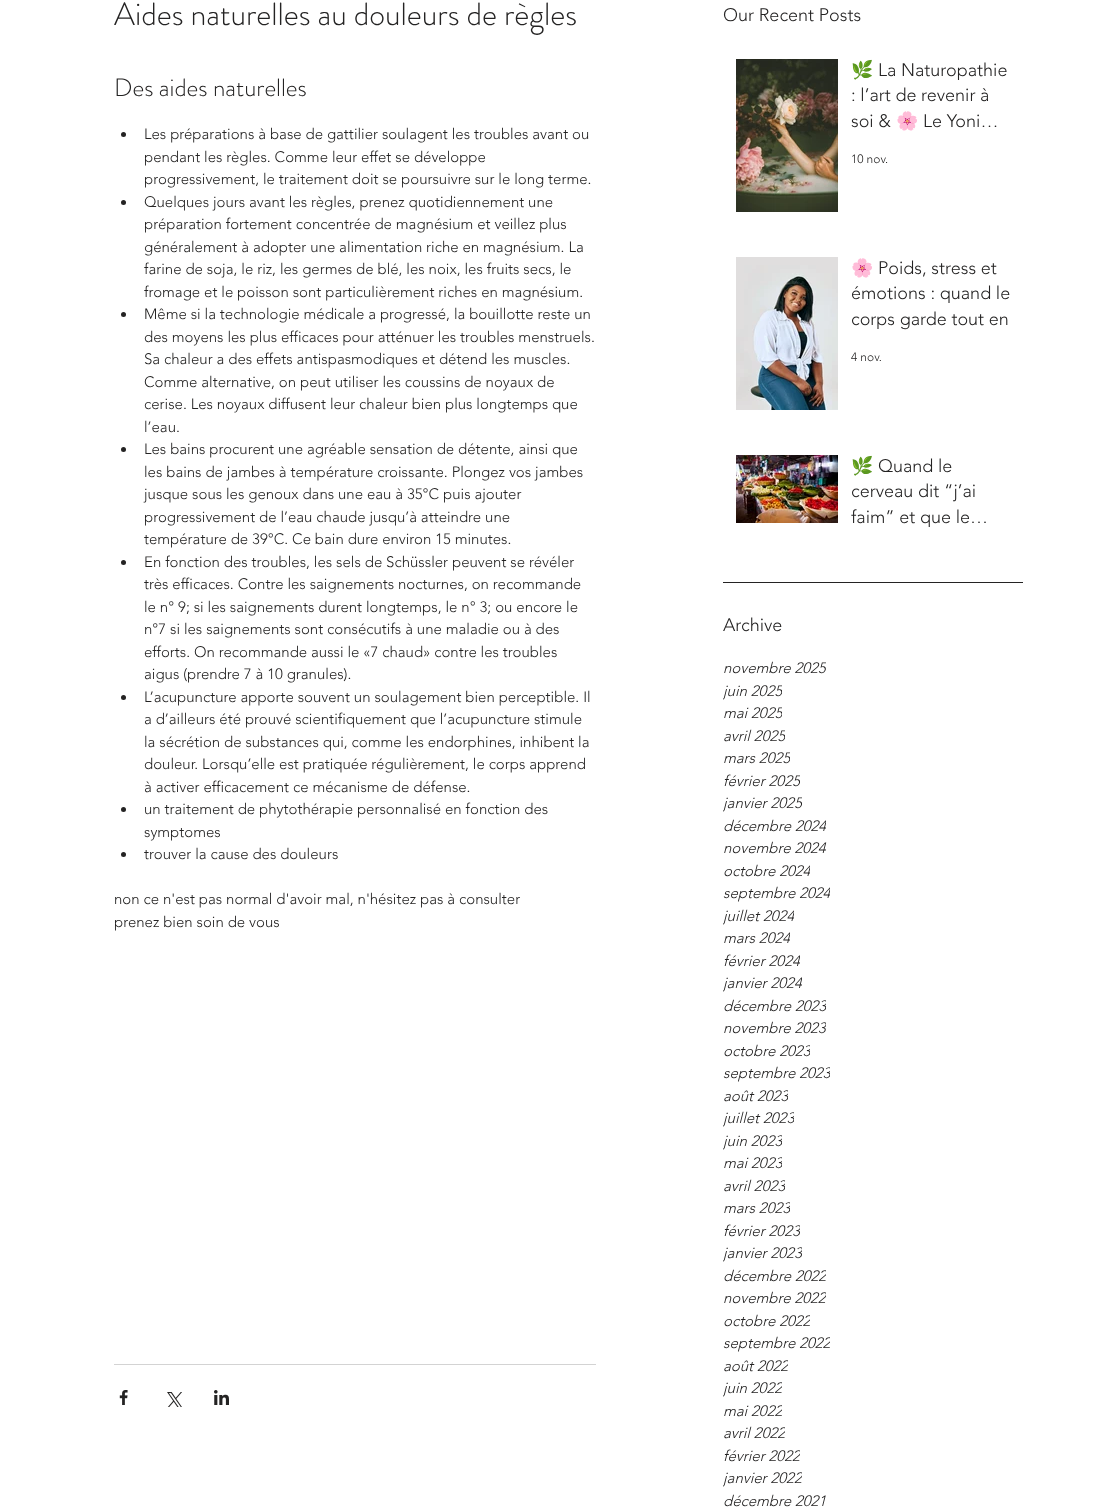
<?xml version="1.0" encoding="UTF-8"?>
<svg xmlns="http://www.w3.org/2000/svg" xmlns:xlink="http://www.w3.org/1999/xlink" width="1102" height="1508">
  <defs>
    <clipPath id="clip1"><rect x="723" y="657" width="103" height="23" /></clipPath>
    <clipPath id="clip2"><rect x="723" y="680" width="59" height="22" /></clipPath>
    <clipPath id="clip3"><rect x="723" y="702" width="59" height="23" /></clipPath>
    <clipPath id="clip4"><rect x="723" y="725" width="62" height="22" /></clipPath>
    <clipPath id="clip5"><rect x="723" y="747" width="67" height="23" /></clipPath>
    <clipPath id="clip6"><rect x="723" y="770" width="77" height="22" /></clipPath>
    <clipPath id="clip7"><rect x="723" y="792" width="79" height="23" /></clipPath>
    <clipPath id="clip8"><rect x="723" y="815" width="103" height="22" /></clipPath>
    <clipPath id="clip9"><rect x="723" y="860" width="87" height="22" /></clipPath>
    <clipPath id="clip10"><rect x="723" y="882" width="107" height="23" /></clipPath>
    <clipPath id="clip11"><rect x="723" y="905" width="71" height="22" /></clipPath>
    <clipPath id="clip12"><rect x="723" y="927" width="67" height="23" /></clipPath>
    <clipPath id="clip13"><rect x="723" y="950" width="77" height="22" /></clipPath>
    <clipPath id="clip14"><rect x="723" y="972" width="79" height="23" /></clipPath>
    <clipPath id="clip15"><rect x="723" y="995" width="103" height="22" /></clipPath>
    <clipPath id="clip16"><rect x="723" y="1017" width="103" height="23" /></clipPath>
    <clipPath id="clip17"><rect x="723" y="1040" width="87" height="22" /></clipPath>
    <clipPath id="clip18"><rect x="723" y="1062" width="107" height="23" /></clipPath>
    <clipPath id="clip19"><rect x="723" y="1085" width="65" height="22" /></clipPath>
    <clipPath id="clip20"><rect x="723" y="1107" width="71" height="23" /></clipPath>
    <clipPath id="clip21"><rect x="723" y="1130" width="59" height="22" /></clipPath>
    <clipPath id="clip22"><rect x="723" y="1152" width="59" height="23" /></clipPath>
    <clipPath id="clip23"><rect x="723" y="1175" width="62" height="22" /></clipPath>
    <clipPath id="clip24"><rect x="723" y="1197" width="67" height="23" /></clipPath>
    <clipPath id="clip25"><rect x="723" y="1220" width="77" height="22" /></clipPath>
    <clipPath id="clip26"><rect x="723" y="1242" width="79" height="23" /></clipPath>
    <clipPath id="clip27"><rect x="723" y="1265" width="103" height="22" /></clipPath>
    <clipPath id="clip28"><rect x="723" y="1287" width="103" height="23" /></clipPath>
    <clipPath id="clip29"><rect x="723" y="1310" width="87" height="22" /></clipPath>
    <clipPath id="clip30"><rect x="723" y="1332" width="107" height="23" /></clipPath>
    <clipPath id="clip31"><rect x="723" y="1355" width="65" height="22" /></clipPath>
    <clipPath id="clip32"><rect x="723" y="1377" width="59" height="23" /></clipPath>
    <clipPath id="clip33"><rect x="723" y="1400" width="59" height="22" /></clipPath>
    <clipPath id="clip34"><rect x="723" y="1422" width="62" height="23" /></clipPath>
    <clipPath id="clip35"><rect x="723" y="1445" width="77" height="22" /></clipPath>
    <clipPath id="clip36"><rect x="723" y="1467" width="79" height="23" /></clipPath>
  </defs>
  <rect width="100%" height="100%" fill="#ffffff" />
  <circle cx="123.5" cy="134.5" r="2.5" fill="#242323" />
  <circle cx="123.5" cy="202.5" r="2.5" fill="#242323" />
  <circle cx="123.5" cy="314.5" r="2.5" fill="#242323" />
  <circle cx="123.5" cy="449.5" r="2.5" fill="#242323" />
  <circle cx="123.5" cy="562.5" r="2.5" fill="#242323" />
  <circle cx="123.5" cy="697.5" r="2.5" fill="#242323" />
  <circle cx="123.5" cy="809.5" r="2.5" fill="#242323" />
  <circle cx="123.5" cy="854.5" r="2.5" fill="#242323" />
  <rect x="114" y="1364" width="482" height="1" fill="#d3d3d3" />
  <image x="119" y="1390" width="9" height="15" xlink:href="image1.png" />
  <image x="167" y="1392" width="15" height="15" xlink:href="image2.png" />
  <image x="214" y="1390" width="15" height="15" xlink:href="image3.png" />
  <image x="736" y="59" width="102" height="153" xlink:href="image4.png" />
  <image x="736" y="257" width="102" height="153" xlink:href="image5.png" />
  <image x="736" y="455" width="102" height="68" xlink:href="image6.png" />
  <rect x="723" y="582" width="300" height="1" fill="#242323" />
  <text x="114" y="25" style="font-family: 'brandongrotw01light'; font-size: 32px; font-weight: 300; fill: #242323">Aides naturelles au douleurs de règles</text>
  <text x="114" y="96" style="font-family: 'brandongrotw01light'; font-size: 25px; font-weight: 300; fill: #242323">Des aides naturelles</text>
  <text x="144" y="139" style="font-family: 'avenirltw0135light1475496'; font-size: 15px; font-weight: 300; fill: #242323">Les préparations à base de gattilier soulagent les troubles avant ou</text>
  <text x="144" y="162" style="font-family: 'avenirltw0135light1475496'; font-size: 15px; font-weight: 300; fill: #242323">pendant les règles. Comme leur effet se développe</text>
  <text x="144" y="184" style="font-family: 'avenirltw0135light1475496'; font-size: 15px; font-weight: 300; fill: #242323">progressivement, le traitement doit se poursuivre sur le long terme.</text>
  <text x="144" y="207" style="font-family: 'avenirltw0135light1475496'; font-size: 15px; font-weight: 300; fill: #242323">Quelques jours avant les règles, prenez quotidiennement une</text>
  <text x="144" y="229" style="font-family: 'avenirltw0135light1475496'; font-size: 15px; font-weight: 300; fill: #242323">préparation fortement concentrée de magnésium et veillez plus</text>
  <text x="144" y="252" style="font-family: 'avenirltw0135light1475496'; font-size: 15px; font-weight: 300; fill: #242323">généralement à adopter une alimentation riche en magnésium. La</text>
  <text x="144" y="274" style="font-family: 'avenirltw0135light1475496'; font-size: 15px; font-weight: 300; fill: #242323">farine de soja, le riz, les germes de blé, les noix, les fruits secs, le</text>
  <text x="144" y="297" style="font-family: 'avenirltw0135light1475496'; font-size: 15px; font-weight: 300; fill: #242323">fromage et le poisson sont particulièrement riches en magnésium.</text>
  <text x="144" y="319" style="font-family: 'avenirltw0135light1475496'; font-size: 15px; font-weight: 300; fill: #242323">Même si la technologie médicale a progressé, la bouillotte reste un</text>
  <text x="144" y="342" style="font-family: 'avenirltw0135light1475496'; font-size: 15px; font-weight: 300; fill: #242323">des moyens les plus efficaces pour atténuer les troubles menstruels.</text>
  <text x="144" y="364" style="font-family: 'avenirltw0135light1475496'; font-size: 15px; font-weight: 300; fill: #242323">Sa chaleur a des effets antispasmodiques et détend les muscles.</text>
  <text x="144" y="387" style="font-family: 'avenirltw0135light1475496'; font-size: 15px; font-weight: 300; fill: #242323">Comme alternative, on peut utiliser les coussins de noyaux de</text>
  <text x="144" y="409" style="font-family: 'avenirltw0135light1475496'; font-size: 15px; font-weight: 300; fill: #242323">cerise. Les noyaux diffusent leur chaleur bien plus longtemps que</text>
  <text x="144" y="432" style="font-family: 'avenirltw0135light1475496'; font-size: 15px; font-weight: 300; fill: #242323">l’eau.</text>
  <text x="144" y="454" style="font-family: 'avenirltw0135light1475496'; font-size: 15px; font-weight: 300; fill: #242323">Les bains procurent une agréable sensation de détente, ainsi que</text>
  <text x="144" y="477" style="font-family: 'avenirltw0135light1475496'; font-size: 15px; font-weight: 300; fill: #242323">les bains de jambes à température croissante. Plongez vos jambes</text>
  <text x="144" y="499" style="font-family: 'avenirltw0135light1475496'; font-size: 15px; font-weight: 300; fill: #242323">jusque sous les genoux dans une eau à 35°C puis ajouter</text>
  <text x="144" y="522" style="font-family: 'avenirltw0135light1475496'; font-size: 15px; font-weight: 300; fill: #242323">progressivement de l’eau chaude jusqu’à atteindre une</text>
  <text x="144" y="544" style="font-family: 'avenirltw0135light1475496'; font-size: 15px; font-weight: 300; fill: #242323">température de 39°C. Ce bain dure environ 15 minutes.</text>
  <text x="144" y="567" style="font-family: 'avenirltw0135light1475496'; font-size: 15px; font-weight: 300; fill: #242323">En fonction des troubles, les sels de Schüssler peuvent se révéler</text>
  <text x="144" y="589" style="font-family: 'avenirltw0135light1475496'; font-size: 15px; font-weight: 300; fill: #242323">très efficaces. Contre les saignements nocturnes, on recommande</text>
  <text x="144" y="612" style="font-family: 'avenirltw0135light1475496'; font-size: 15px; font-weight: 300; fill: #242323">le n° 9; si les saignements durent longtemps, le n° 3; ou encore le</text>
  <text x="144" y="634" style="font-family: 'avenirltw0135light1475496'; font-size: 15px; font-weight: 300; fill: #242323">n°7 si les saignements sont consécutifs à une maladie ou à des</text>
  <text x="144" y="657" style="font-family: 'avenirltw0135light1475496'; font-size: 15px; font-weight: 300; fill: #242323">efforts. On recommande aussi le «7 chaud» contre les troubles</text>
  <text x="144" y="679" style="font-family: 'avenirltw0135light1475496'; font-size: 15px; font-weight: 300; fill: #242323">aigus (prendre 7 à 10 granules).</text>
  <text x="144" y="702" style="font-family: 'avenirltw0135light1475496'; font-size: 15px; font-weight: 300; fill: #242323">L’acupuncture apporte souvent un soulagement bien perceptible. Il</text>
  <text x="144" y="724" style="font-family: 'avenirltw0135light1475496'; font-size: 15px; font-weight: 300; fill: #242323">a d’ailleurs été prouvé scientifiquement que l’acupuncture stimule</text>
  <text x="144" y="747" style="font-family: 'avenirltw0135light1475496'; font-size: 15px; font-weight: 300; fill: #242323">la sécrétion de substances qui, comme les endorphines, inhibent la</text>
  <text x="144" y="769" style="font-family: 'avenirltw0135light1475496'; font-size: 15px; font-weight: 300; fill: #242323">douleur. Lorsqu’elle est pratiquée régulièrement, le corps apprend</text>
  <text x="144" y="792" style="font-family: 'avenirltw0135light1475496'; font-size: 15px; font-weight: 300; fill: #242323">à activer efficacement ce mécanisme de défense.</text>
  <text x="144" y="814" style="font-family: 'avenirltw0135light1475496'; font-size: 15px; font-weight: 300; fill: #242323">un traitement de phytothérapie personnalisé en fonction des</text>
  <text x="144" y="837" style="font-family: 'avenirltw0135light1475496'; font-size: 15px; font-weight: 300; fill: #242323">symptomes</text>
  <text x="144" y="859" style="font-family: 'avenirltw0135light1475496'; font-size: 15px; font-weight: 300; fill: #242323">trouver la cause des douleurs</text>
  <text x="114" y="904" style="font-family: 'avenirltw0135light1475496'; font-size: 15px; font-weight: 300; fill: #242323">non ce n'est pas normal d'avoir mal, n'hésitez pas à consulter</text>
  <text x="114" y="927" style="font-family: 'avenirltw0135light1475496'; font-size: 15px; font-weight: 300; fill: #242323">prenez bien soin de vous</text>
  <text x="723" y="21" style="font-family: 'avenirltw0135light1475496'; font-size: 18px; font-weight: 300; fill: #242323">Our Recent Posts</text>
  <text x="851" y="76" style="font-family: Noto Color Emoji; font-size: 18px; fill: #242323">🌿</text>
  <text x="878" y="76" style="font-family: 'avenirltw0135light1475496'; font-size: 18px; font-weight: 300; fill: #242323">La Naturopathie</text>
  <text x="851" y="101" style="font-family: 'avenirltw0135light1475496'; font-size: 18px; font-weight: 300; fill: #242323">: l’art de revenir à</text>
  <text x="851" y="127" style="font-family: 'avenirltw0135light1475496'; font-size: 18px; font-weight: 300; fill: #242323">soi &amp;</text>
  <text x="896" y="127" style="font-family: Noto Color Emoji; font-size: 18px; fill: #242323">🌸</text>
  <text x="923" y="127" style="font-family: 'avenirltw0135light1475496'; font-size: 18px; font-weight: 300; fill: #242323">Le Yoni…</text>
  <text x="851" y="163" style="font-family: 'avenirltw0135light1475496'; font-size: 12px; font-weight: 300; fill: #242323">10 nov.</text>
  <text x="851" y="274" style="font-family: Noto Color Emoji; font-size: 18px; fill: #242323">🌸</text>
  <text x="878" y="274" style="font-family: 'avenirltw0135light1475496'; font-size: 18px; font-weight: 300; fill: #242323">Poids, stress et</text>
  <text x="851" y="299" style="font-family: 'avenirltw0135light1475496'; font-size: 18px; font-weight: 300; fill: #242323">émotions : quand le</text>
  <text x="851" y="325" style="font-family: 'avenirltw0135light1475496'; font-size: 18px; font-weight: 300; fill: #242323">corps garde tout en</text>
  <text x="851" y="361" style="font-family: 'avenirltw0135light1475496'; font-size: 12px; font-weight: 300; fill: #242323">4 nov.</text>
  <text x="851" y="472" style="font-family: Noto Color Emoji; font-size: 18px; fill: #242323">🌿</text>
  <text x="878" y="472" style="font-family: 'avenirltw0135light1475496'; font-size: 18px; font-weight: 300; fill: #242323">Quand le</text>
  <text x="851" y="497" style="font-family: 'avenirltw0135light1475496'; font-size: 18px; font-weight: 300; fill: #242323">cerveau dit “j’ai</text>
  <text x="851" y="523" style="font-family: 'avenirltw0135light1475496'; font-size: 18px; font-weight: 300; fill: #242323">faim” et que le…</text>
  <text x="723" y="631" style="font-family: 'avenirltw0135light1475496'; font-size: 18px; font-weight: 300; fill: #242323">Archive</text>
  <g clip-path="url(#clip1)">
    <text x="723" y="673" style="font-family: 'avenirltw0135light1475496'; font-size: 15px; font-weight: 300; font-style: italic; fill: #242323">novembre 2025</text>
  </g>
  <g clip-path="url(#clip2)">
    <text x="723" y="696" style="font-family: 'avenirltw0135light1475496'; font-size: 15px; font-weight: 300; font-style: italic; fill: #242323">juin 2025</text>
  </g>
  <g clip-path="url(#clip3)">
    <text x="723" y="718" style="font-family: 'avenirltw0135light1475496'; font-size: 15px; font-weight: 300; font-style: italic; fill: #242323">mai 2025</text>
  </g>
  <g clip-path="url(#clip4)">
    <text x="723" y="741" style="font-family: 'avenirltw0135light1475496'; font-size: 15px; font-weight: 300; font-style: italic; fill: #242323">avril 2025</text>
  </g>
  <g clip-path="url(#clip5)">
    <text x="723" y="763" style="font-family: 'avenirltw0135light1475496'; font-size: 15px; font-weight: 300; font-style: italic; fill: #242323">mars 2025</text>
  </g>
  <g clip-path="url(#clip6)">
    <text x="723" y="786" style="font-family: 'avenirltw0135light1475496'; font-size: 15px; font-weight: 300; font-style: italic; fill: #242323">février 2025</text>
  </g>
  <g clip-path="url(#clip7)">
    <text x="723" y="808" style="font-family: 'avenirltw0135light1475496'; font-size: 15px; font-weight: 300; font-style: italic; fill: #242323">janvier 2025</text>
  </g>
  <g clip-path="url(#clip8)">
    <text x="723" y="831" style="font-family: 'avenirltw0135light1475496'; font-size: 15px; font-weight: 300; font-style: italic; fill: #242323">décembre 2024</text>
  </g>
  <text x="723" y="853" style="font-family: 'avenirltw0135light1475496'; font-size: 15px; font-weight: 300; font-style: italic; fill: #242323">novembre 2024</text>
  <g clip-path="url(#clip9)">
    <text x="723" y="876" style="font-family: 'avenirltw0135light1475496'; font-size: 15px; font-weight: 300; font-style: italic; fill: #242323">octobre 2024</text>
  </g>
  <g clip-path="url(#clip10)">
    <text x="723" y="898" style="font-family: 'avenirltw0135light1475496'; font-size: 15px; font-weight: 300; font-style: italic; fill: #242323">septembre 2024</text>
  </g>
  <g clip-path="url(#clip11)">
    <text x="723" y="921" style="font-family: 'avenirltw0135light1475496'; font-size: 15px; font-weight: 300; font-style: italic; fill: #242323">juillet 2024</text>
  </g>
  <g clip-path="url(#clip12)">
    <text x="723" y="943" style="font-family: 'avenirltw0135light1475496'; font-size: 15px; font-weight: 300; font-style: italic; fill: #242323">mars 2024</text>
  </g>
  <g clip-path="url(#clip13)">
    <text x="723" y="966" style="font-family: 'avenirltw0135light1475496'; font-size: 15px; font-weight: 300; font-style: italic; fill: #242323">février 2024</text>
  </g>
  <g clip-path="url(#clip14)">
    <text x="723" y="988" style="font-family: 'avenirltw0135light1475496'; font-size: 15px; font-weight: 300; font-style: italic; fill: #242323">janvier 2024</text>
  </g>
  <g clip-path="url(#clip15)">
    <text x="723" y="1011" style="font-family: 'avenirltw0135light1475496'; font-size: 15px; font-weight: 300; font-style: italic; fill: #242323">décembre 2023</text>
  </g>
  <g clip-path="url(#clip16)">
    <text x="723" y="1033" style="font-family: 'avenirltw0135light1475496'; font-size: 15px; font-weight: 300; font-style: italic; fill: #242323">novembre 2023</text>
  </g>
  <g clip-path="url(#clip17)">
    <text x="723" y="1056" style="font-family: 'avenirltw0135light1475496'; font-size: 15px; font-weight: 300; font-style: italic; fill: #242323">octobre 2023</text>
  </g>
  <g clip-path="url(#clip18)">
    <text x="723" y="1078" style="font-family: 'avenirltw0135light1475496'; font-size: 15px; font-weight: 300; font-style: italic; fill: #242323">septembre 2023</text>
  </g>
  <g clip-path="url(#clip19)">
    <text x="723" y="1101" style="font-family: 'avenirltw0135light1475496'; font-size: 15px; font-weight: 300; font-style: italic; fill: #242323">août 2023</text>
  </g>
  <g clip-path="url(#clip20)">
    <text x="723" y="1123" style="font-family: 'avenirltw0135light1475496'; font-size: 15px; font-weight: 300; font-style: italic; fill: #242323">juillet 2023</text>
  </g>
  <g clip-path="url(#clip21)">
    <text x="723" y="1146" style="font-family: 'avenirltw0135light1475496'; font-size: 15px; font-weight: 300; font-style: italic; fill: #242323">juin 2023</text>
  </g>
  <g clip-path="url(#clip22)">
    <text x="723" y="1168" style="font-family: 'avenirltw0135light1475496'; font-size: 15px; font-weight: 300; font-style: italic; fill: #242323">mai 2023</text>
  </g>
  <g clip-path="url(#clip23)">
    <text x="723" y="1191" style="font-family: 'avenirltw0135light1475496'; font-size: 15px; font-weight: 300; font-style: italic; fill: #242323">avril 2023</text>
  </g>
  <g clip-path="url(#clip24)">
    <text x="723" y="1213" style="font-family: 'avenirltw0135light1475496'; font-size: 15px; font-weight: 300; font-style: italic; fill: #242323">mars 2023</text>
  </g>
  <g clip-path="url(#clip25)">
    <text x="723" y="1236" style="font-family: 'avenirltw0135light1475496'; font-size: 15px; font-weight: 300; font-style: italic; fill: #242323">février 2023</text>
  </g>
  <g clip-path="url(#clip26)">
    <text x="723" y="1258" style="font-family: 'avenirltw0135light1475496'; font-size: 15px; font-weight: 300; font-style: italic; fill: #242323">janvier 2023</text>
  </g>
  <g clip-path="url(#clip27)">
    <text x="723" y="1281" style="font-family: 'avenirltw0135light1475496'; font-size: 15px; font-weight: 300; font-style: italic; fill: #242323">décembre 2022</text>
  </g>
  <g clip-path="url(#clip28)">
    <text x="723" y="1303" style="font-family: 'avenirltw0135light1475496'; font-size: 15px; font-weight: 300; font-style: italic; fill: #242323">novembre 2022</text>
  </g>
  <g clip-path="url(#clip29)">
    <text x="723" y="1326" style="font-family: 'avenirltw0135light1475496'; font-size: 15px; font-weight: 300; font-style: italic; fill: #242323">octobre 2022</text>
  </g>
  <g clip-path="url(#clip30)">
    <text x="723" y="1348" style="font-family: 'avenirltw0135light1475496'; font-size: 15px; font-weight: 300; font-style: italic; fill: #242323">septembre 2022</text>
  </g>
  <g clip-path="url(#clip31)">
    <text x="723" y="1371" style="font-family: 'avenirltw0135light1475496'; font-size: 15px; font-weight: 300; font-style: italic; fill: #242323">août 2022</text>
  </g>
  <g clip-path="url(#clip32)">
    <text x="723" y="1393" style="font-family: 'avenirltw0135light1475496'; font-size: 15px; font-weight: 300; font-style: italic; fill: #242323">juin 2022</text>
  </g>
  <g clip-path="url(#clip33)">
    <text x="723" y="1416" style="font-family: 'avenirltw0135light1475496'; font-size: 15px; font-weight: 300; font-style: italic; fill: #242323">mai 2022</text>
  </g>
  <g clip-path="url(#clip34)">
    <text x="723" y="1438" style="font-family: 'avenirltw0135light1475496'; font-size: 15px; font-weight: 300; font-style: italic; fill: #242323">avril 2022</text>
  </g>
  <g clip-path="url(#clip35)">
    <text x="723" y="1461" style="font-family: 'avenirltw0135light1475496'; font-size: 15px; font-weight: 300; font-style: italic; fill: #242323">février 2022</text>
  </g>
  <g clip-path="url(#clip36)">
    <text x="723" y="1483" style="font-family: 'avenirltw0135light1475496'; font-size: 15px; font-weight: 300; font-style: italic; fill: #242323">janvier 2022</text>
  </g>
  <text x="723" y="1506" style="font-family: 'avenirltw0135light1475496'; font-size: 15px; font-weight: 300; font-style: italic; fill: #242323">décembre 2021</text>
</svg>
